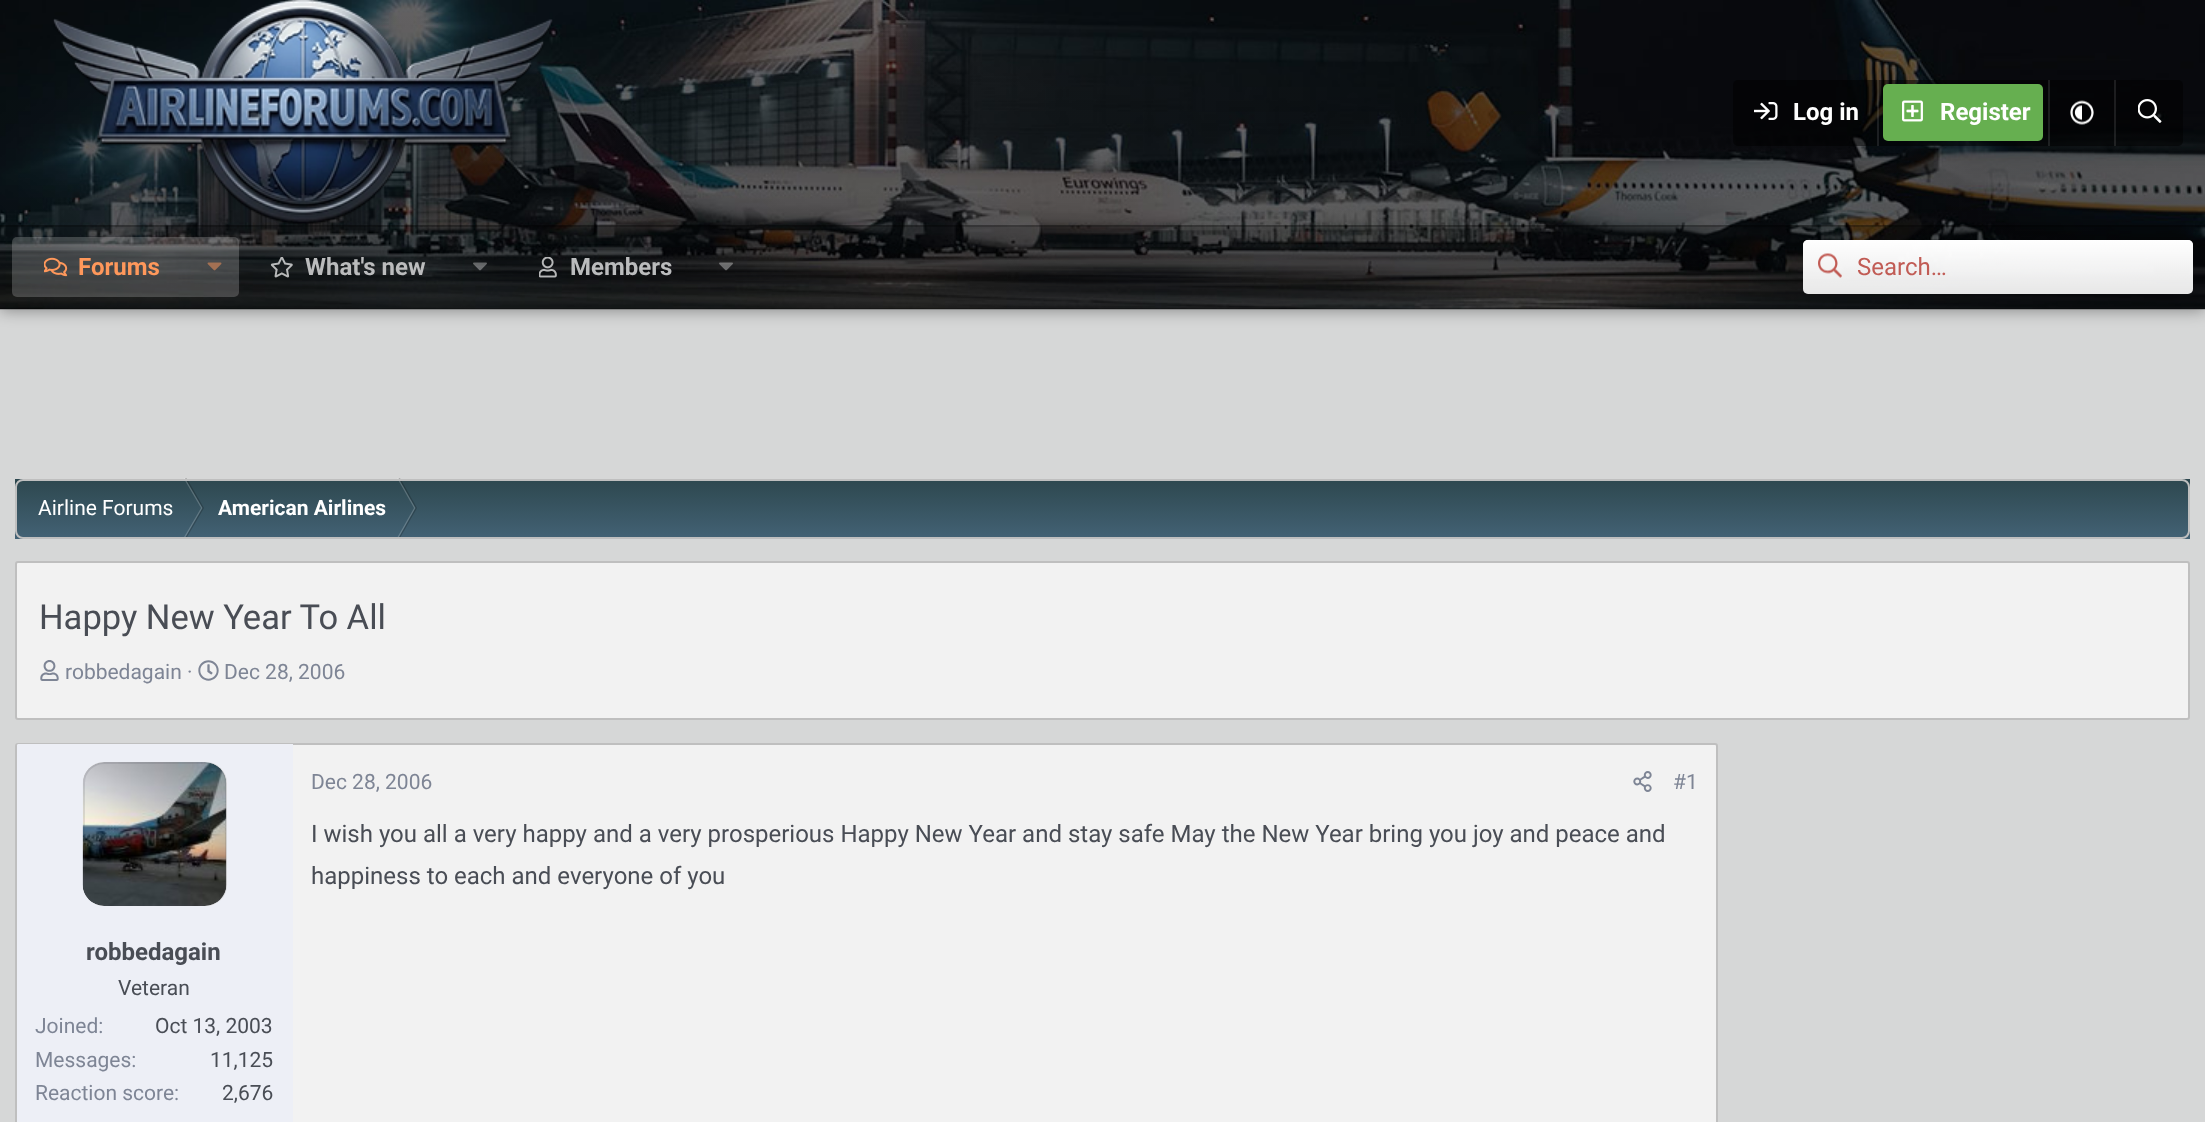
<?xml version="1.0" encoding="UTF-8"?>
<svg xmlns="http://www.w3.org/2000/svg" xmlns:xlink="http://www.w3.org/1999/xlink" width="2205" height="1122">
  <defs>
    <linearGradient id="g1" gradientUnits="userSpaceOnUse" x1="1998" y1="240" x2="1998" y2="294"><stop offset="0" stop-color="#ffffff" /><stop offset="1" stop-color="#ffffff" stop-opacity="0" /></linearGradient>
    <linearGradient id="g2" gradientUnits="userSpaceOnUse" x1="1103" y1="478" x2="1103" y2="539"><stop offset="0" stop-color="#2d474e" /><stop offset="1" stop-color="#436275" /></linearGradient>
  </defs>
  <rect width="100%" height="100%" fill="#d6d7d7" />
  <rect y="2" width="2205" height="309" fill="#000000" fill-opacity="0.35" filter="blur(7.5px)" />
  <image x="0" y="0" width="2205" height="309" xlink:href="image1.png" />
  <image x="53" y="0" width="500" height="225" xlink:href="image2.png" />
  <rect x="1733" y="80" width="450" height="66" rx="5" fill="#000000" fill-opacity="0.5" />
  <image x="1754" y="102" width="24" height="18" xlink:href="image3.png" />
  <rect x="1877" y="80" width="2" height="66" fill="#ffffff" fill-opacity="0.1" />
  <rect x="1883" y="84" width="160" height="57" rx="5" fill="#66af50" />
  <image x="1902" y="100" width="21" height="22" xlink:href="image4.png" />
  <rect x="2048" y="80" width="2" height="66" fill="#ffffff" fill-opacity="0.1" />
  <image x="2070" y="100" width="24" height="25" xlink:href="image5.png" />
  <rect x="2114" y="80" width="2" height="66" fill="#ffffff" fill-opacity="0.1" />
  <image x="2138" y="99" width="24" height="24" xlink:href="image6.png" />
  <rect y="225" width="2205" height="84" fill="#000000" fill-opacity="0.2" />
  <rect y="225" width="2205" height="2" fill="#000000" fill-opacity="0.2" />
  <rect y="308" width="2205" height="2" fill="#000000" fill-opacity="0.2" />
  <rect x="12" y="237" width="227" height="60" rx="5" fill="#ffffff" fill-opacity="0.2" />
  <image x="44" y="257" width="24" height="20" xlink:href="image7.png" />
  <image x="207" y="262" width="15" height="9" xlink:href="image8.png" />
  <image x="270" y="257" width="23" height="21" xlink:href="image9.png" />
  <image x="473" y="262" width="14" height="9" xlink:href="image10.png" />
  <image x="539" y="257" width="18" height="21" xlink:href="image11.png" />
  <image x="719" y="262" width="14" height="9" xlink:href="image12.png" />
  <rect x="1803" y="240" width="390" height="54" rx="5" fill="#ffffff" fill-opacity="0.9" />
  <rect x="1803" y="240" width="390" height="54" rx="5" fill="url(#g1)" />
  <image x="1818" y="253" width="24" height="25" xlink:href="image13.png" />
  <rect x="15" y="479" width="2175" height="60" fill="url(#g2)" />
  <path d="M 183.5 478 h 1.5 l 17.5 30 h -1.5 z" fill="#ffffff" fill-opacity="0.2" />
  <path d="M 185 478 h 1.5 l 17.5 30 h -1.5 z" fill="#000000" fill-opacity="0.2" />
  <path d="M 201 508 h 1.5 l -17.5 30 h -1.5 z" fill="#ffffff" fill-opacity="0.2" />
  <path d="M 202.5 508 h 1.5 l -17.5 30 h -1.5 z" fill="#000000" fill-opacity="0.2" />
  <path d="M 397 478 h 1.5 l 17 30 h -1.5 z" fill="#ffffff" fill-opacity="0.2" />
  <path d="M 398.5 478 h 1.5 l 17 30 h -1.5 z" fill="#000000" fill-opacity="0.2" />
  <path d="M 414 508 h 1.5 l -17 30 h -1.5 z" fill="#ffffff" fill-opacity="0.2" />
  <path d="M 415.5 508 h 1.5 l -17 30 h -1.5 z" fill="#000000" fill-opacity="0.2" />
  <rect x="16" y="480" width="2173" height="58" rx="7" fill="none" stroke="#bfbfbf" stroke-width="2" />
  <rect x="16" y="562" width="2173" height="157" rx="2" fill="#f2f2f2" stroke="#bfbfbf" stroke-width="2" />
  <image x="40" y="660" width="19" height="21" xlink:href="image14.png" />
  <image x="198" y="660" width="21" height="21" xlink:href="image15.png" />
  <rect x="16" y="744" width="1701" height="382" rx="2" fill="#f2f2f2" stroke="#bfbfbf" stroke-width="2" />
  <image x="1633" y="771" width="19" height="21" xlink:href="image16.png" />
  <path d="M 18.5 744 h 274.5 v 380 h -274.5 c -1 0 -1.5 -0.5 -1.5 -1.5 v -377 c 0 -1 0.5 -1.5 1.5 -1.5 z" fill="#edeff6" />
  <rect x="83" y="762" width="144" height="144" rx="21" fill="#f2f2f2" />
  <image x="82" y="762" width="145" height="144" xlink:href="image17.png" />
  <rect x="84" y="763" width="142" height="142" rx="20" fill="none" stroke="#494d55" stroke-opacity="0.15" stroke-width="2" />
  <text x="1793" y="120" style="font-family: Roboto; font-size: 24px; font-weight: bold; fill: #ffffff">Log in</text>
  <text x="1940" y="120" style="font-family: Roboto; font-size: 24px; font-weight: bold; fill: #ffffff">Register</text>
  <text x="78" y="275" style="font-family: Roboto; font-size: 24px; font-weight: bold; fill: #ff985b">Forums</text>
  <text x="305" y="275" style="font-family: Roboto; font-size: 24px; font-weight: bold; fill: #bbbcbd">What's new</text>
  <text x="570" y="275" style="font-family: Roboto; font-size: 24px; font-weight: bold; fill: #bbbcbd">Members</text>
  <text x="1857" y="275" style="font-family: Roboto; font-size: 24px; fill: #c15c55">Search…</text>
  <text x="38" y="515" style="font-family: Roboto; font-size: 21px; fill: #ffffff">Airline Forums</text>
  <text x="218" y="515" style="font-family: Roboto; font-size: 21px; font-weight: bold; fill: #ffffff">American Airlines</text>
  <text x="39" y="629" style="font-family: Roboto; font-size: 34.5px; fill: #494d55">Happy New Year To All</text>
  <text x="65" y="679" style="font-family: Roboto; font-size: 21px; fill: #7e8595">robbedagain ·</text>
  <text x="224" y="679" style="font-family: Roboto; font-size: 21px; fill: #7e8595">Dec 28, 2006</text>
  <text x="311" y="789" style="font-family: Roboto; font-size: 21px; fill: #7e8595">Dec 28, 2006</text>
  <text x="1673" y="789" style="font-family: Roboto; font-size: 21px; fill: #7e8595">#1</text>
  <text x="311" y="842" style="font-family: Roboto; font-size: 24px; fill: #494d55">I wish you all a very happy and a very prosperious Happy New Year and stay safe May the New Year bring you joy and peace and</text>
  <text x="311" y="884" style="font-family: Roboto; font-size: 24px; fill: #494d55">happiness to each and everyone of you</text>
  <text x="86" y="960" style="font-family: Roboto; font-size: 24px; font-weight: bold; fill: #494d55">robbedagain</text>
  <text x="118" y="995" style="font-family: Roboto; font-size: 21px; fill: #494d55">Veteran</text>
  <text x="35" y="1033" style="font-family: Roboto; font-size: 21px; fill: #7e8595">Joined:</text>
  <text x="155" y="1033" style="font-family: Roboto; font-size: 21px; fill: #494d55">Oct 13, 2003</text>
  <text x="35" y="1067" style="font-family: Roboto; font-size: 21px; fill: #7e8595">Messages:</text>
  <text x="210" y="1067" style="font-family: Roboto; font-size: 21px; fill: #494d55">11,125</text>
  <text x="35" y="1100" style="font-family: Roboto; font-size: 21px; fill: #7e8595">Reaction score:</text>
  <text x="222" y="1100" style="font-family: Roboto; font-size: 21px; fill: #494d55">2,676</text>
</svg>
